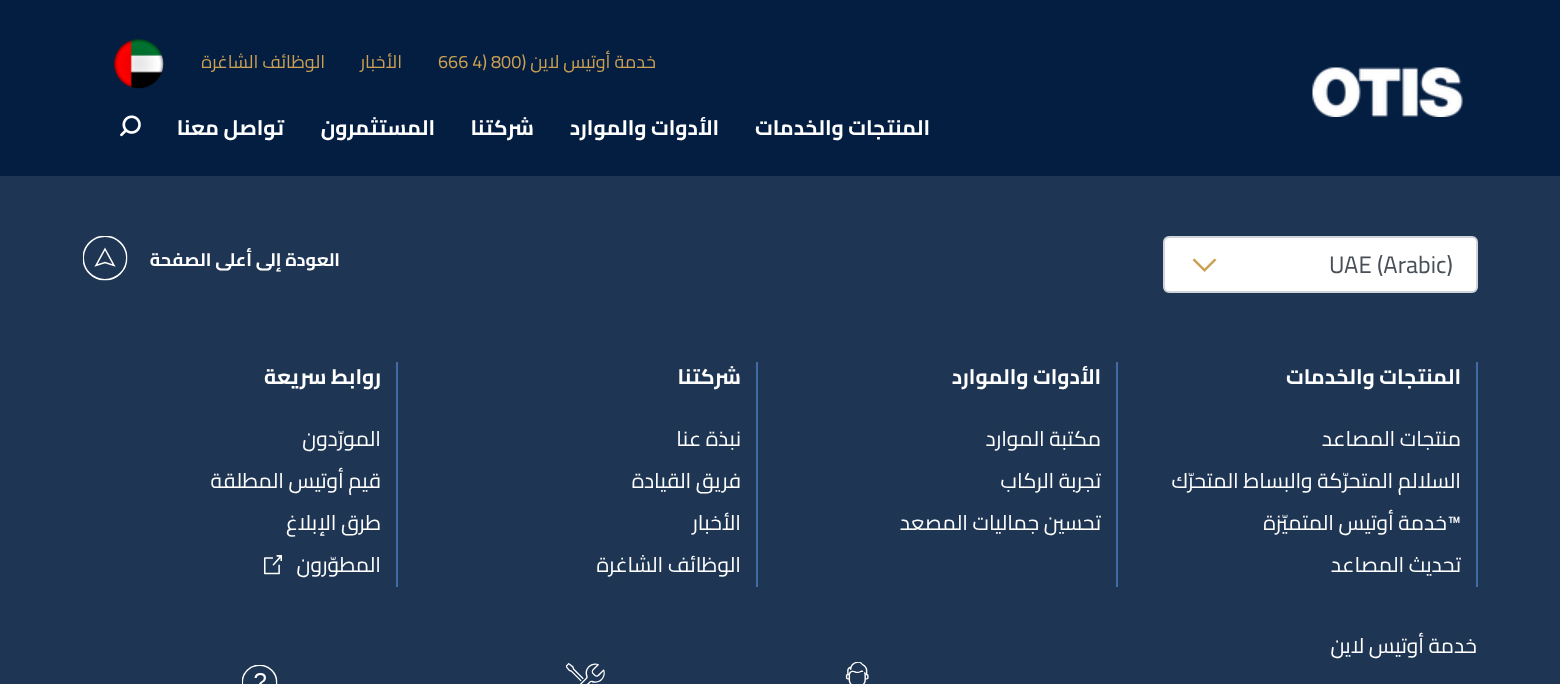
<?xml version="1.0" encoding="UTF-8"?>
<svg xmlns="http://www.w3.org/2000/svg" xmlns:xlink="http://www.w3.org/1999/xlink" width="1560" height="684">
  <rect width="100%" height="100%" fill="#041e42" />
  <image x="1312" y="67" width="151" height="50" xlink:href="image1.png" />
  <image x="114" y="39" width="50" height="50" xlink:href="image2.png" />
  <image x="120" y="115" width="21" height="22" xlink:href="image3.png" />
  <rect y="176" width="1560" height="508" fill="#1e3553" />
  <rect x="1164" y="237" width="313" height="55" rx="5" fill="#ffffff" stroke="#ced4da" stroke-width="2" />
  <path d="M 1204.5 272 l -12 -12 l 2 -1.5 l 10 10 l 10 -10 l 2 1.5 z" fill="#cba052" />
  <image x="83" y="236" width="45" height="45" xlink:href="image4.png" />
  <rect x="1476" y="362" width="2" height="225" fill="#406ba6" />
  <rect x="1116" y="362" width="2" height="225" fill="#406ba6" />
  <rect x="756" y="362" width="2" height="225" fill="#406ba6" />
  <rect x="396" y="362" width="2" height="225" fill="#406ba6" />
  <image x="264" y="555" width="18" height="20" xlink:href="image5.png" />
  <image x="845" y="662" width="24" height="22" xlink:href="image6.png" />
  <image x="566" y="663" width="39" height="21" xlink:href="image7.png" />
  <image x="242" y="665" width="36" height="19" xlink:href="image8.png" />
  <text x="656" y="68" style="font-family: Cairo; font-size: 18px; direction: rtl; fill: #cba052">خدمة أوتيس لاين (</text>
  <text x="438" y="68" style="font-family: Cairo; font-size: 18px; fill: #cba052">666 4) 800</text>
  <text x="402" y="68" style="font-family: Cairo; font-size: 18px; direction: rtl; fill: #cba052">الأخبار</text>
  <text x="325" y="68" style="font-family: Cairo; font-size: 18px; direction: rtl; fill: #cba052">الوظائف الشاغرة</text>
  <text x="930" y="135" style="font-family: Cairo; font-size: 21px; font-weight: bold; direction: rtl; fill: #ffffff">المنتجات والخدمات</text>
  <text x="719" y="135" style="font-family: Cairo; font-size: 21px; font-weight: bold; direction: rtl; fill: #ffffff">الأدوات والموارد</text>
  <text x="534" y="135" style="font-family: Cairo; font-size: 21px; font-weight: bold; direction: rtl; fill: #ffffff">شركتنا</text>
  <text x="435" y="135" style="font-family: Cairo; font-size: 21px; font-weight: bold; direction: rtl; fill: #ffffff">المستثمرون</text>
  <text x="284" y="135" style="font-family: Cairo; font-size: 21px; font-weight: bold; direction: rtl; fill: #ffffff">تواصل معنا</text>
  <text x="1329" y="273" style="font-family: Cairo; font-size: 24px; fill: #495057">UAE (Arabic) </text>
  <text x="340" y="266" style="font-family: Cairo; font-size: 18px; font-weight: bold; direction: rtl; fill: #ffffff">العودة إلى أعلى الصفحة</text>
  <text x="1461" y="384" style="font-family: Cairo; font-size: 21px; font-weight: bold; direction: rtl; fill: #ffffff">المنتجات والخدمات</text>
  <text x="1461" y="446" style="font-family: Cairo; font-size: 21px; direction: rtl; fill: #ffffff">منتجات المصاعد</text>
  <text x="1461" y="488" style="font-family: Cairo; font-size: 21px; direction: rtl; fill: #ffffff">السلالم المتحرّكة والبساط المتحرّك</text>
  <text x="1461" y="530" style="font-family: Cairo; font-size: 21px; direction: rtl; fill: #ffffff">™خدمة أوتيس المتميّزة</text>
  <text x="1461" y="572" style="font-family: Cairo; font-size: 21px; direction: rtl; fill: #ffffff">تحديث المصاعد</text>
  <text x="1101" y="384" style="font-family: Cairo; font-size: 21px; font-weight: bold; direction: rtl; fill: #ffffff">الأدوات والموارد</text>
  <text x="1101" y="446" style="font-family: Cairo; font-size: 21px; direction: rtl; fill: #ffffff">مكتبة الموارد</text>
  <text x="1101" y="488" style="font-family: Cairo; font-size: 21px; direction: rtl; fill: #ffffff">تجربة الركاب</text>
  <text x="1101" y="530" style="font-family: Cairo; font-size: 21px; direction: rtl; fill: #ffffff">تحسين جماليات المصعد</text>
  <text x="741" y="384" style="font-family: Cairo; font-size: 21px; font-weight: bold; direction: rtl; fill: #ffffff">شركتنا</text>
  <text x="741" y="446" style="font-family: Cairo; font-size: 21px; direction: rtl; fill: #ffffff">نبذة عنا</text>
  <text x="741" y="488" style="font-family: Cairo; font-size: 21px; direction: rtl; fill: #ffffff">فريق القيادة</text>
  <text x="741" y="530" style="font-family: Cairo; font-size: 21px; direction: rtl; fill: #ffffff">الأخبار</text>
  <text x="741" y="572" style="font-family: Cairo; font-size: 21px; direction: rtl; fill: #ffffff">الوظائف الشاغرة</text>
  <text x="381" y="384" style="font-family: Cairo; font-size: 21px; font-weight: bold; direction: rtl; fill: #ffffff">روابط سريعة</text>
  <text x="381" y="446" style="font-family: Cairo; font-size: 21px; direction: rtl; fill: #ffffff">المورّدون</text>
  <text x="381" y="488" style="font-family: Cairo; font-size: 21px; direction: rtl; fill: #ffffff">قيم أوتيس المطلقة</text>
  <text x="381" y="530" style="font-family: Cairo; font-size: 21px; direction: rtl; fill: #ffffff">طرق الإبلاغ</text>
  <text x="381" y="572" style="font-family: Cairo; font-size: 21px; direction: rtl; fill: #ffffff">المطوّرون</text>
  <text x="1477" y="653" style="font-family: Cairo; font-size: 21px; direction: rtl; fill: #ffffff">خدمة أوتيس لاين</text>
</svg>
